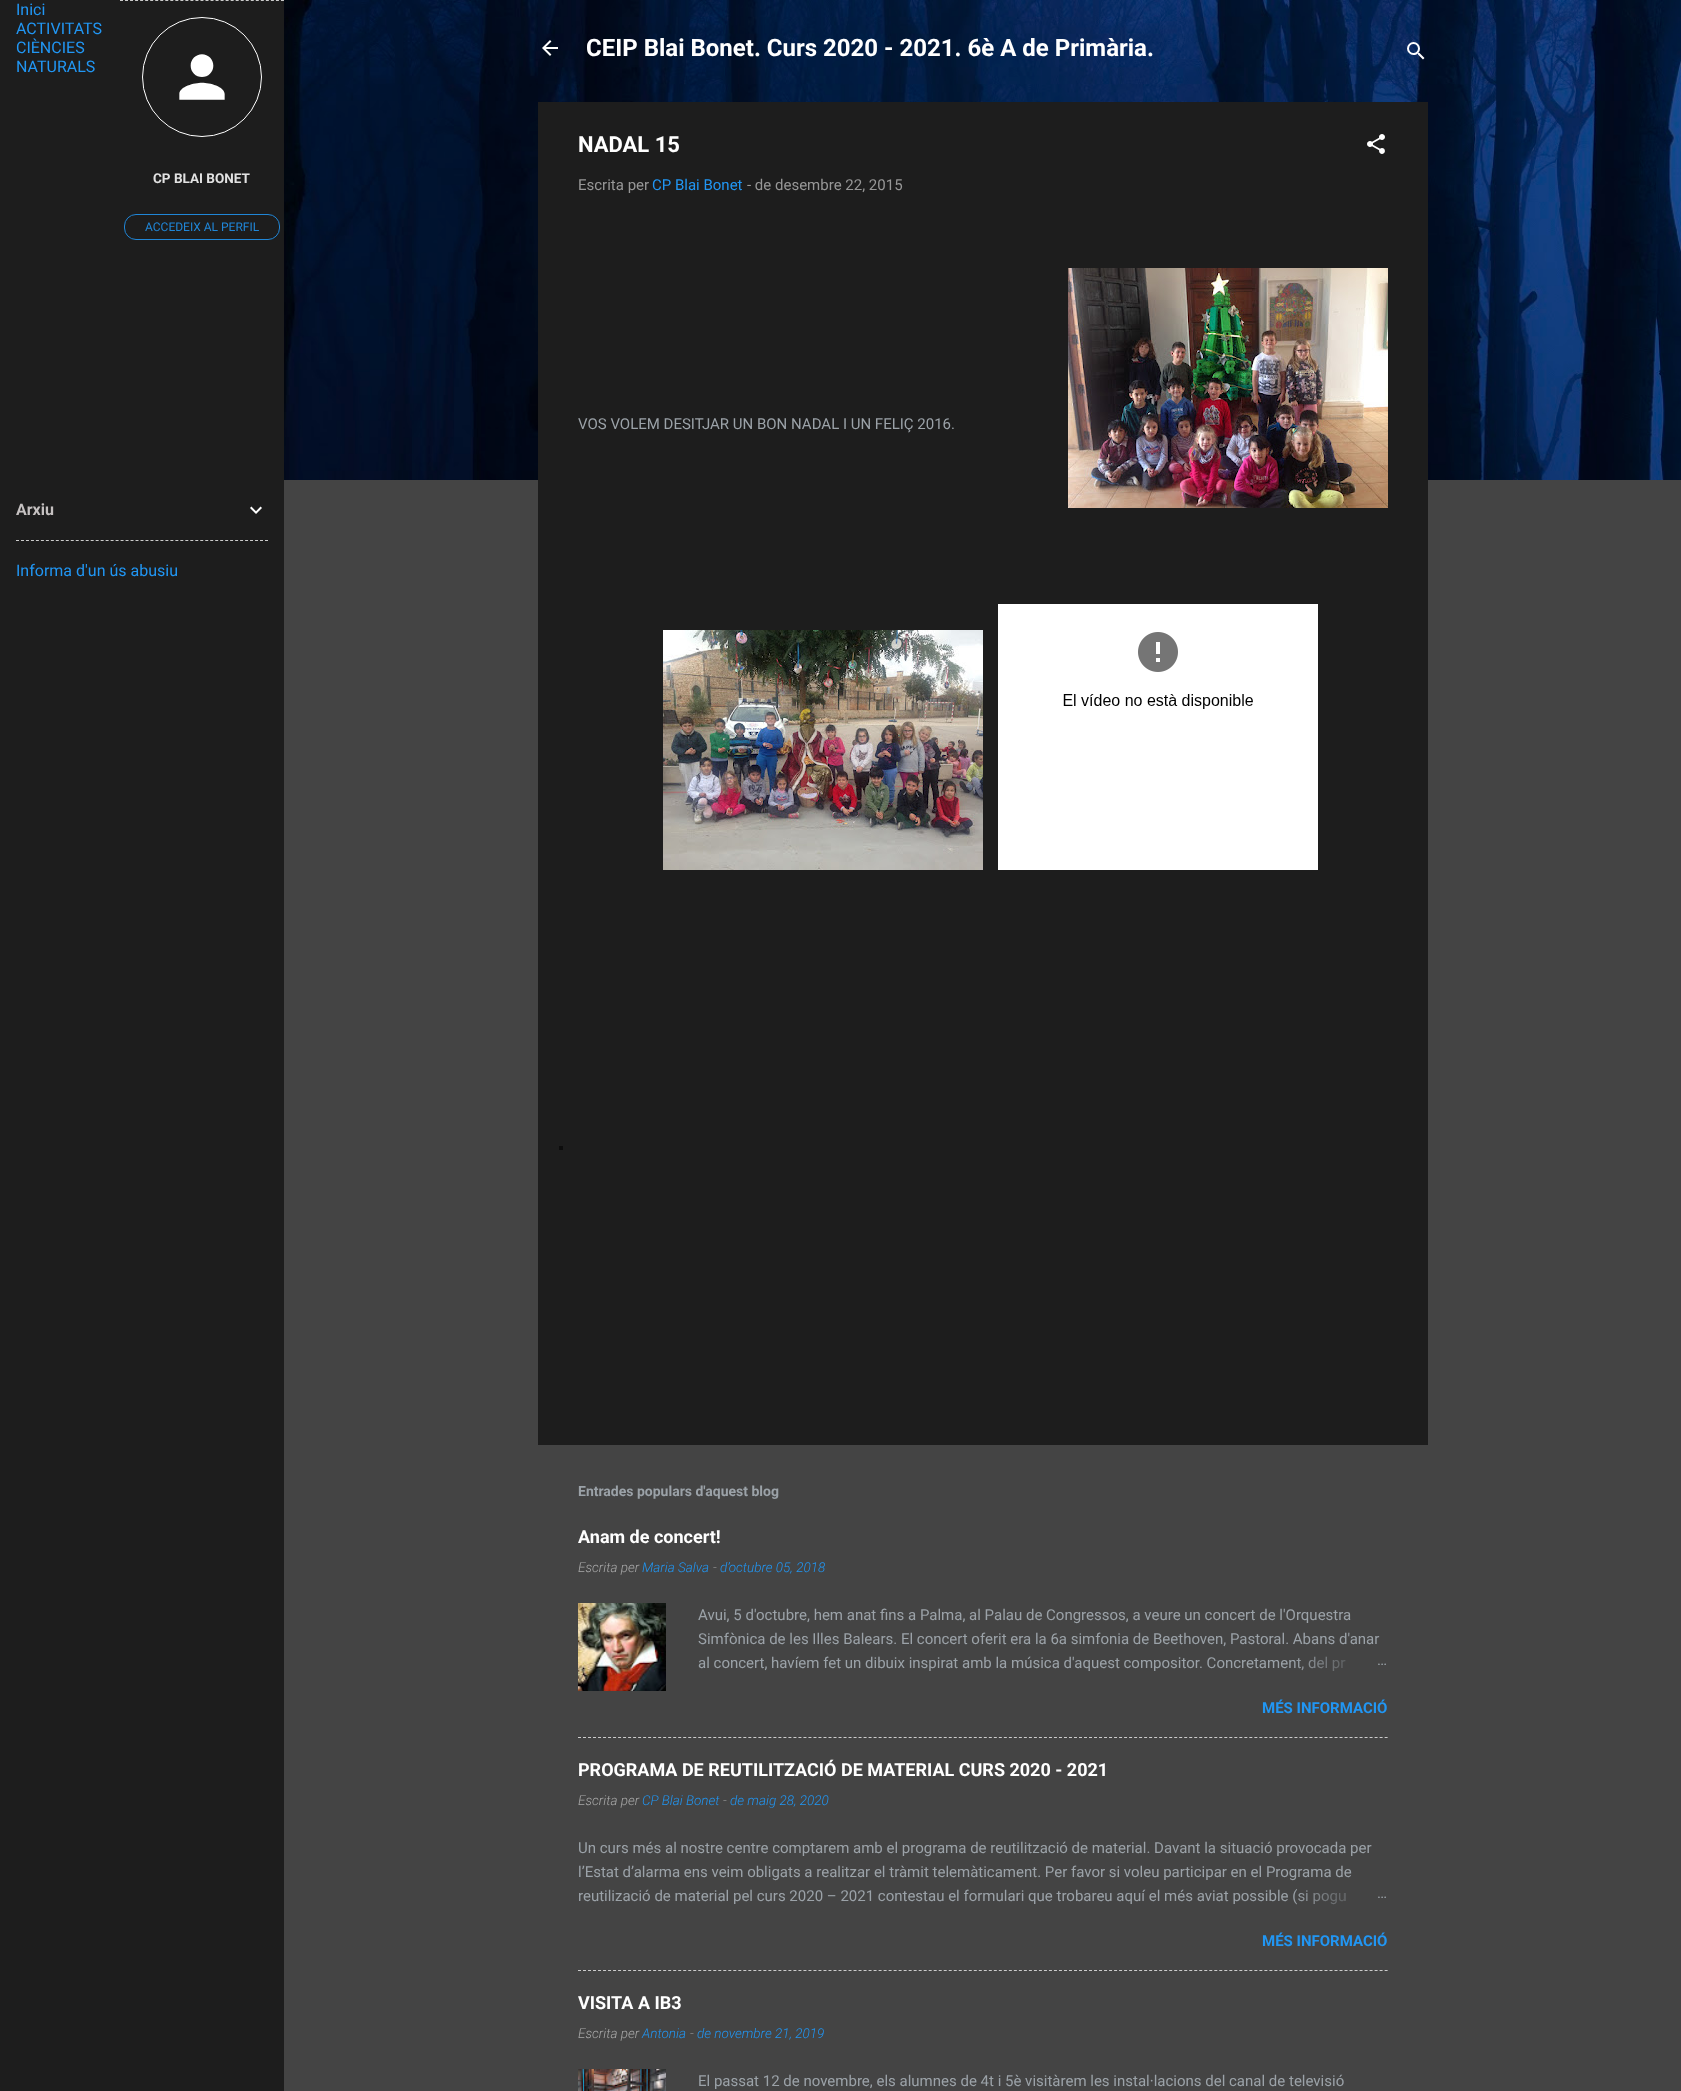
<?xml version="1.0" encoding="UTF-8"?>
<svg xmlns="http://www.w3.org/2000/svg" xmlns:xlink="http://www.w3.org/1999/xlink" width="1681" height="2091">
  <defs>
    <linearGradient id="g1" gradientUnits="userSpaceOnUse" x1="1388" y1="1663" x2="1292" y2="1663"><stop offset="0" stop-color="#444444" /><stop offset="0.2" stop-color="#444444" /><stop offset="1" stop-color="#444444" stop-opacity="0" /></linearGradient>
    <linearGradient id="g2" gradientUnits="userSpaceOnUse" x1="1388" y1="1896" x2="1292" y2="1896"><stop offset="0" stop-color="#444444" /><stop offset="0.2" stop-color="#444444" /><stop offset="1" stop-color="#444444" stop-opacity="0" /></linearGradient>
  </defs>
  <rect width="100%" height="100%" fill="#444444" />
  <rect width="284" height="2091" fill="#1d1d1d" />
  <path d="M 120 0.5 h 164" fill="none" stroke="#cccccc" stroke-dasharray="3 2.03" />
  <circle cx="202" cy="77" r="59.5" fill="none" stroke="#ffffff" />
  <image x="179" y="54" width="46" height="46" xlink:href="image1.png" />
  <rect x="124.5" y="214.5" width="155" height="25" rx="11.5" fill="none" stroke="#2086d7" />
  <image x="250" y="506" width="12" height="8" xlink:href="image2.png" />
  <path d="M 16 540.5 h 252" fill="none" stroke="#cccccc" stroke-dasharray="3 1.98" />
  <image x="284" y="0" width="1397" height="480" xlink:href="image3.png" />
  <rect x="538" y="102" width="890" height="1343" fill="#1d1d1d" />
  <rect x="559" y="1146" width="4" height="4" fill="#0d0d0d" />
  <image x="542" y="40" width="16" height="16" xlink:href="image4.png" />
  <image x="1407" y="42" width="18" height="18" xlink:href="image5.png" />
  <image x="1367" y="134" width="18" height="20" xlink:href="image6.png" />
  <image x="1068" y="268" width="320" height="240" xlink:href="image7.png" />
  <image x="663" y="630" width="320" height="240" xlink:href="image8.png" />
  <image x="998" y="604" width="320" height="266" xlink:href="image9.png" />
  <image x="578" y="1603" width="88" height="88" xlink:href="image10.png" />
  <path d="M 578 1737.5 h 810" fill="none" stroke="#cccccc" stroke-dasharray="3 2.01" />
  <path d="M 578 1970.5 h 810" fill="none" stroke="#cccccc" stroke-dasharray="3 2.01" />
  <image x="578" y="2069" width="88" height="22" xlink:href="image11.png" />
  <text x="16" y="15" style="font-family: Roboto; font-size: 16px; fill: #2196f3">Inici</text>
  <text x="16" y="34" style="font-family: Roboto; font-size: 16px; fill: #2196f3">ACTIVITATS</text>
  <text x="16" y="53" style="font-family: Roboto; font-size: 16px; fill: #2196f3">CIÈNCIES</text>
  <text x="16" y="72" style="font-family: Roboto; font-size: 16px; fill: #2196f3">NATURALS</text>
  <text x="153" y="183" style="font-family: Roboto; font-size: 13.5px; font-weight: bold; fill: #e2e2e2">CP BLAI BONET</text>
  <text x="145" y="231" style="font-family: Roboto; font-size: 12px; fill: #2086d7">ACCEDEIX AL PERFIL</text>
  <text x="16" y="515" style="font-family: Roboto; font-size: 16px; font-weight: bold; fill: #c5c1c1">Arxiu</text>
  <text x="16" y="576" style="font-family: Roboto; font-size: 16px; fill: #2196f3">Informa d'un ús abusiu</text>
  <text x="586" y="56" style="font-family: Roboto; font-size: 24px; font-weight: bold; fill: #ffffff">CEIP Blai Bonet. Curs 2020 - 2021. 6è A de Primària.</text>
  <text x="578" y="152" style="font-family: Roboto; font-size: 22px; font-weight: bold; fill: #ffffff">NADAL 15</text>
  <text x="578" y="190" style="font-family: Roboto; font-size: 15px; fill: #979797">Escrita per</text>
  <text x="652" y="190" style="font-family: Roboto; font-size: 15px; fill: #2196f3">CP Blai Bonet</text>
  <text x="747" y="190" style="font-family: Roboto; font-size: 15px; fill: #979797">- de desembre 22, 2015</text>
  <text x="578" y="429" style="font-family: Roboto; font-size: 15px; fill: #9ba2a8">VOS VOLEM DESITJAR UN BON NADAL I UN FELIÇ 2016.</text>
  <text x="578" y="1496" style="font-family: Roboto; font-size: 14px; font-weight: bold; fill: #9ba2a8">Entrades populars d'aquest blog</text>
  <text x="578" y="1543" style="font-family: Roboto; font-size: 18px; font-weight: bold; fill: #ffffff">Anam de concert!</text>
  <text x="578" y="1572" style="font-family: Roboto; font-size: 13.5px; font-weight: 300; font-style: italic; fill: #a9a9a9">Escrita per</text>
  <text x="642" y="1572" style="font-family: Roboto; font-size: 13.5px; font-weight: 300; font-style: italic; fill: #2196f3">Maria Salva</text>
  <text x="713" y="1572" style="font-family: Roboto; font-size: 13.5px; font-weight: 300; font-style: italic; fill: #a9a9a9">-</text>
  <text x="720" y="1572" style="font-family: Roboto; font-size: 13.5px; font-weight: 300; font-style: italic; fill: #2196f3">d’octubre 05, 2018</text>
  <text x="698" y="1620" style="font-family: Roboto; font-size: 15px; fill: #9ba2a8">Avui, 5 d'octubre, hem anat fins a Palma, al Palau de Congressos, a veure un concert de l'Orquestra</text>
  <text x="698" y="1644" style="font-family: Roboto; font-size: 15px; fill: #9ba2a8">Simfònica de les Illes Balears. El concert oferit era la 6a simfonia de Beethoven, Pastoral. Abans d'anar</text>
  <text x="698" y="1668" style="font-family: Roboto; font-size: 15px; fill: #9ba2a8">al concert, havíem fet un dibuix inspirat amb la música d'aquest compositor. Concretament, del pr</text>
  <rect x="1294" y="1656" width="51" height="15" fill="url(#g1)" />
  <text x="1377" y="1665" style="font-family: Roboto; font-size: 15px; fill: #9ba2a8">…</text>
  <text x="1262" y="1713" style="font-family: Roboto; font-size: 15px; font-weight: bold; fill: #2196f3">MÉS INFORMACIÓ</text>
  <text x="578" y="1776" style="font-family: Roboto; font-size: 18px; font-weight: bold; fill: #ffffff">PROGRAMA DE REUTILITZACIÓ DE MATERIAL CURS 2020 - 2021</text>
  <text x="578" y="1805" style="font-family: Roboto; font-size: 13.5px; font-weight: 300; font-style: italic; fill: #a9a9a9">Escrita per</text>
  <text x="642" y="1805" style="font-family: Roboto; font-size: 13.5px; font-weight: 300; font-style: italic; fill: #2196f3">CP Blai Bonet</text>
  <text x="723" y="1805" style="font-family: Roboto; font-size: 13.5px; font-weight: 300; font-style: italic; fill: #a9a9a9">-</text>
  <text x="730" y="1805" style="font-family: Roboto; font-size: 13.5px; font-weight: 300; font-style: italic; fill: #2196f3">de maig 28, 2020</text>
  <text x="578" y="1853" style="font-family: Roboto; font-size: 15px; fill: #9ba2a8">Un curs més al nostre centre comptarem amb el programa de reutilització de material. Davant la situació provocada per</text>
  <text x="578" y="1877" style="font-family: Roboto; font-size: 15px; fill: #9ba2a8">l’Estat d’alarma ens veim obligats a realitzar el tràmit telemàticament. Per favor si voleu participar en el Programa de</text>
  <text x="578" y="1901" style="font-family: Roboto; font-size: 15px; fill: #9ba2a8">reutilizació de material pel curs 2020 – 2021 contestau el formulari que trobareu aquí el més aviat possible (si pogu</text>
  <rect x="1294" y="1890" width="51" height="15" fill="url(#g2)" />
  <text x="1377" y="1898" style="font-family: Roboto; font-size: 15px; fill: #9ba2a8">…</text>
  <text x="1262" y="1946" style="font-family: Roboto; font-size: 15px; font-weight: bold; fill: #2196f3">MÉS INFORMACIÓ</text>
  <text x="578" y="2009" style="font-family: Roboto; font-size: 18px; font-weight: bold; fill: #ffffff">VISITA A IB3</text>
  <text x="578" y="2038" style="font-family: Roboto; font-size: 13.5px; font-weight: 300; font-style: italic; fill: #a9a9a9">Escrita per</text>
  <text x="642" y="2038" style="font-family: Roboto; font-size: 13.5px; font-weight: 300; font-style: italic; fill: #2196f3">Antonia</text>
  <text x="690" y="2038" style="font-family: Roboto; font-size: 13.5px; font-weight: 300; font-style: italic; fill: #a9a9a9">-</text>
  <text x="697" y="2038" style="font-family: Roboto; font-size: 13.5px; font-weight: 300; font-style: italic; fill: #2196f3">de novembre 21, 2019</text>
  <text x="698" y="2086" style="font-family: Roboto; font-size: 15px; fill: #9ba2a8">El passat 12 de novembre, els alumnes de 4t i 5è visitàrem les instal·lacions del canal de televisió</text>
</svg>
